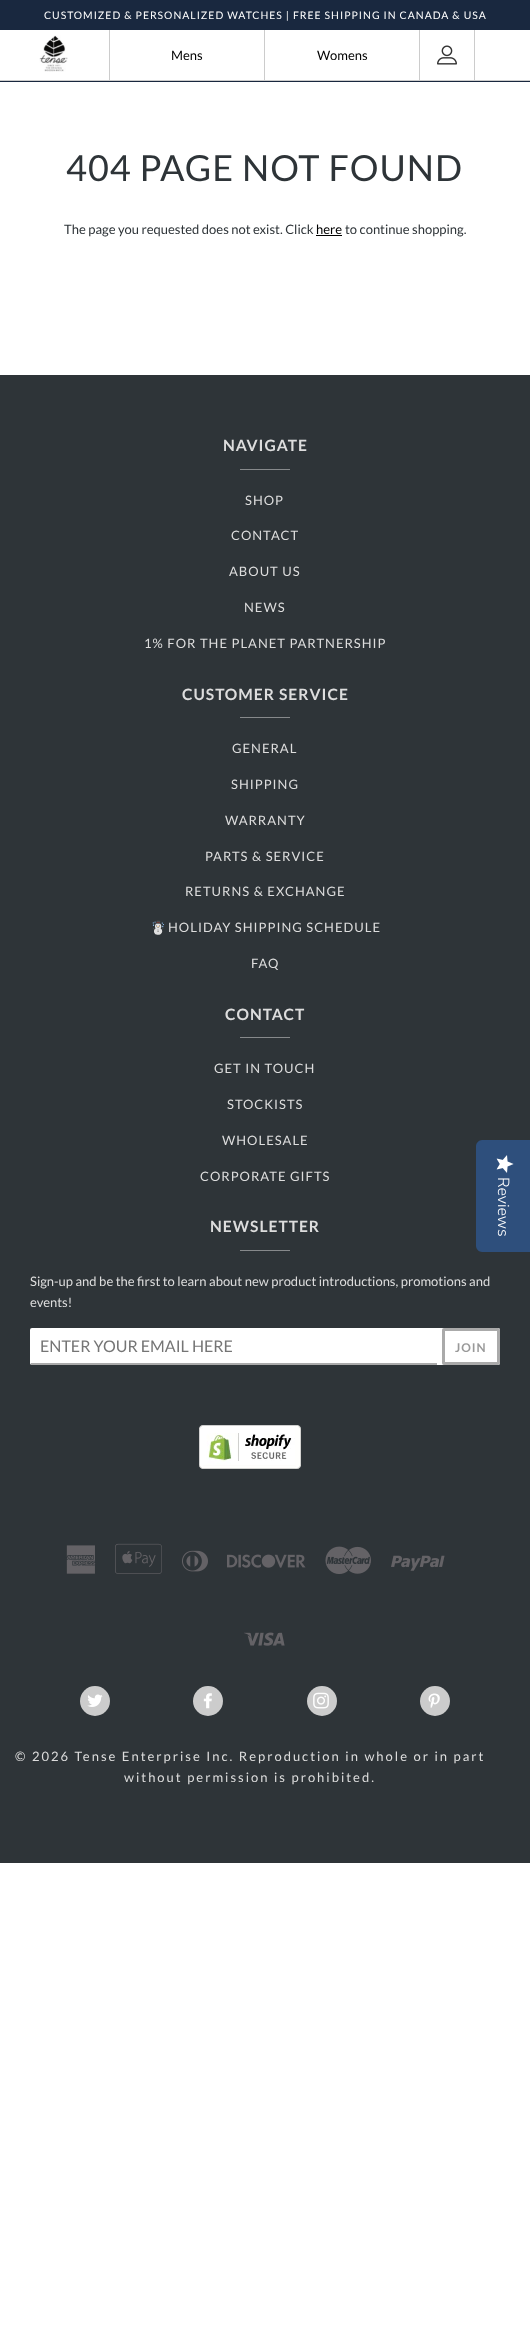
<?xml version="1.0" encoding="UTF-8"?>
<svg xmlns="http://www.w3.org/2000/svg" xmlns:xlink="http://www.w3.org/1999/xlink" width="530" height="2335">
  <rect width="100%" height="100%" fill="#ffffff" />
  <rect width="530" height="30" fill="#19283f" />
  <rect y="81" width="530" height="1" fill="#19283f" />
  <rect y="80" width="530" height="1" fill="#cccccc" />
  <rect x="109" y="30" width="1" height="50" fill="#cccccc" />
  <image x="39" y="35" width="29" height="37" xlink:href="image1.png" />
  <rect x="264" y="30" width="1" height="50" fill="#cccccc" />
  <rect x="419" y="30" width="1" height="50" fill="#cccccc" />
  <rect x="474" y="30" width="1" height="50" fill="#cccccc" />
  <image x="437" y="45" width="20" height="20" xlink:href="image2.png" />
  <rect x="316" y="235" width="26" height="1" fill="#000000" />
  <rect y="375" width="530" height="1488" fill="#2e3438" />
  <rect x="240" y="469" width="50" height="1" fill="#86898b" />
  <rect x="240" y="717" width="50" height="1" fill="#86898b" />
  <rect x="240" y="1037" width="50" height="1" fill="#86898b" />
  <rect x="240" y="1250" width="50" height="1" fill="#86898b" />
  <rect x="30" y="1328" width="470" height="37" rx="2" fill="#ffffff" />
  <rect x="31" y="1363" width="406" height="2" fill="#aaaaaa" />
  <rect x="443.5" y="1329.5" width="55" height="34" rx="0.5" fill="none" stroke="#aaaaaa" stroke-width="3" />
  <image x="199" y="1425" width="102" height="44" xlink:href="image3.png" />
  <image x="66" y="1545" width="30" height="29" xlink:href="image4.png" />
  <image x="115" y="1543" width="47" height="31" xlink:href="image5.png" />
  <image x="182" y="1550" width="26" height="22" xlink:href="image6.png" />
  <image x="227" y="1554" width="79" height="14" xlink:href="image7.png" />
  <image x="325" y="1546" width="46" height="28" xlink:href="image8.png" />
  <image x="391" y="1555" width="54" height="16" xlink:href="image9.png" />
  <image x="244" y="1632" width="41" height="14" xlink:href="image10.png" />
  <circle cx="95" cy="1701" r="15" fill="#cccccc" />
  <image x="87" y="1694" width="16" height="13" xlink:href="image11.png" />
  <circle cx="208" cy="1701" r="15" fill="#cccccc" />
  <image x="203" y="1693" width="9" height="16" xlink:href="image12.png" />
  <circle cx="322" cy="1701" r="15" fill="#cccccc" />
  <image x="313" y="1692" width="16" height="17" xlink:href="image13.png" />
  <circle cx="435" cy="1701" r="15" fill="#cccccc" />
  <image x="428" y="1693" width="12" height="15" xlink:href="image14.png" />
  <path d="M 530 1140 v 112 h -48 c -3 0 -6 -3 -6 -6 v -100 c 0 -3 3 -6 6 -6 z" fill="#2e4f7c" />
  <image x="496" y="1155" width="18" height="18" xlink:href="image15.png" />
  <text x="44" y="19" style="font-family: Lato; font-size: 10.4px; letter-spacing: 1px; fill: #ffffff">CUSTOMIZED &amp; PERSONALIZED WATCHES | FREE SHIPPING IN CANADA &amp; USA</text>
  <text x="171" y="60" style="font-family: Lato; font-size: 13px; fill: #000000">Mens</text>
  <text x="317" y="60" style="font-family: Lato; font-size: 13px; fill: #000000">Womens</text>
  <text x="66" y="181" style="font-family: Lato; font-size: 36px; letter-spacing: 1px; fill: #2e3438">404 PAGE NOT FOUND</text>
  <text x="64" y="234" style="font-family: Lato; font-size: 13px; fill: #2e3438">The page you requested does not exist. Click</text>
  <text x="316" y="234" style="font-family: Lato; font-size: 13px; fill: #000000">here</text>
  <text x="345" y="234" style="font-family: Lato; font-size: 13px; fill: #2e3438">to continue shopping.</text>
  <text x="223" y="451" style="font-family: Lato; font-size: 15.6px; font-weight: bold; letter-spacing: 1px; fill: #dddddd">NAVIGATE</text>
  <text x="245" y="505" style="font-family: Lato; font-size: 13px; letter-spacing: 1px; fill: #dddddd">SHOP</text>
  <text x="231" y="540" style="font-family: Lato; font-size: 13px; letter-spacing: 1px; fill: #dddddd">CONTACT</text>
  <text x="229" y="576" style="font-family: Lato; font-size: 13px; letter-spacing: 1px; fill: #dddddd">ABOUT US</text>
  <text x="244" y="612" style="font-family: Lato; font-size: 13px; letter-spacing: 1px; fill: #dddddd">NEWS</text>
  <text x="144" y="648" style="font-family: Lato; font-size: 13px; letter-spacing: 1px; fill: #dddddd">1% FOR THE PLANET PARTNERSHIP</text>
  <text x="182" y="700" style="font-family: Lato; font-size: 15.6px; font-weight: bold; letter-spacing: 1px; fill: #dddddd">CUSTOMER SERVICE</text>
  <text x="232" y="753" style="font-family: Lato; font-size: 13px; letter-spacing: 1px; fill: #dddddd">GENERAL</text>
  <text x="231" y="789" style="font-family: Lato; font-size: 13px; letter-spacing: 1px; fill: #dddddd">SHIPPING</text>
  <text x="225" y="825" style="font-family: Lato; font-size: 13px; letter-spacing: 1px; fill: #dddddd">WARRANTY</text>
  <text x="205" y="861" style="font-family: Lato; font-size: 13px; letter-spacing: 1px; fill: #dddddd">PARTS &amp; SERVICE</text>
  <text x="185" y="896" style="font-family: Lato; font-size: 13px; letter-spacing: 1px; fill: #dddddd">RETURNS &amp; EXCHANGE</text>
  <text x="150" y="932" style="font-family: Noto Color Emoji; font-size: 13px; letter-spacing: 1px; fill: #dddddd">☃️</text>
  <text x="168" y="932" style="font-family: Lato; font-size: 13px; letter-spacing: 1px; fill: #dddddd">HOLIDAY SHIPPING SCHEDULE</text>
  <text x="251" y="968" style="font-family: Lato; font-size: 13px; letter-spacing: 1px; fill: #dddddd">FAQ</text>
  <text x="225" y="1020" style="font-family: Lato; font-size: 15.6px; font-weight: bold; letter-spacing: 1px; fill: #dddddd">CONTACT</text>
  <text x="214" y="1073" style="font-family: Lato; font-size: 13px; letter-spacing: 1px; fill: #dddddd">GET IN TOUCH</text>
  <text x="227" y="1109" style="font-family: Lato; font-size: 13px; letter-spacing: 1px; fill: #dddddd">STOCKISTS</text>
  <text x="222" y="1145" style="font-family: Lato; font-size: 13px; letter-spacing: 1px; fill: #dddddd">WHOLESALE</text>
  <text x="200" y="1181" style="font-family: Lato; font-size: 13px; letter-spacing: 1px; fill: #dddddd">CORPORATE GIFTS</text>
  <text x="210" y="1232" style="font-family: Lato; font-size: 15.6px; font-weight: bold; letter-spacing: 1px; fill: #dddddd">NEWSLETTER</text>
  <text x="30" y="1286" style="font-family: Lato; font-size: 13px; fill: #dddddd">Sign-up and be the first to learn about new product introductions, promotions and</text>
  <text x="30" y="1307" style="font-family: Lato; font-size: 13px; fill: #dddddd">events!</text>
  <text x="40" y="1352" style="font-family: Lato; font-size: 16px; fill: #757575">ENTER YOUR EMAIL HERE</text>
  <text x="455" y="1352" style="font-family: Lato; font-size: 12px; font-weight: bold; letter-spacing: 1px; fill: #999999">JOIN</text>
  <text x="15" y="1761" style="font-family: Lato; font-size: 13px; letter-spacing: 2px; fill: #dddddd">© 2026 Tense Enterprise Inc. Reproduction in whole or in part</text>
  <text x="124" y="1782" style="font-family: Lato; font-size: 13px; letter-spacing: 2px; fill: #dddddd">without permission is prohibited.</text>
  <text x="498" y="1177" transform="rotate(90 498 1177)" style="font-family: Nunito Sans; font-size: 16px; font-weight: 300; fill: #ffffff">Reviews</text>
</svg>
